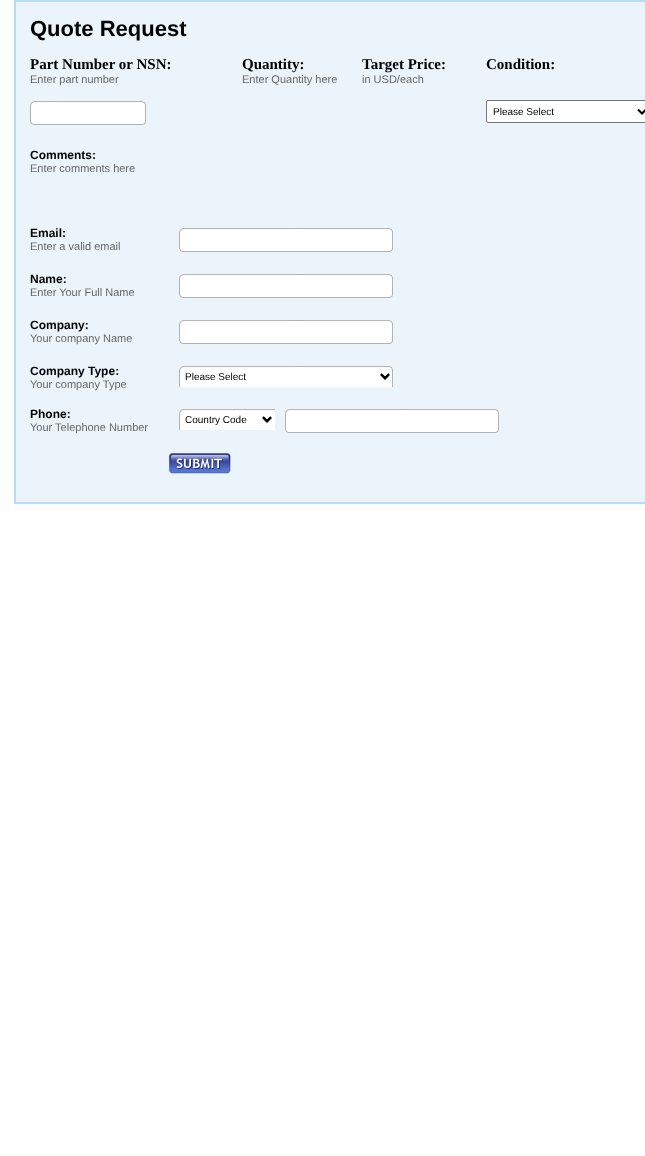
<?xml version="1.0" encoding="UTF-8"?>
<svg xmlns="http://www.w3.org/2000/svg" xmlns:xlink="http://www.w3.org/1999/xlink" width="645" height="1156">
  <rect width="100%" height="100%" fill="#ffffff" />
  <rect x="15" y="1" width="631" height="502" fill="#ebf4fb" stroke="#b7ddf2" stroke-width="2" />
  <image x="30" y="101" width="116" height="24" xlink:href="image1.png" />
  <rect x="486.5" y="100.5" width="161" height="22" rx="1.5" fill="#ffffff" stroke="#767676" />
  <path d="M 638 109.5 l 4 4 l 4 -4" fill="none" stroke="#000000" stroke-width="2" />
  <image x="179" y="228" width="214" height="24" xlink:href="image2.png" />
  <image x="179" y="274" width="214" height="24" xlink:href="image2.png" />
  <image x="179" y="320" width="214" height="24" xlink:href="image2.png" />
  <image x="179" y="366" width="214" height="21" xlink:href="image3.png" />
  <path d="M 381 374.5 l 4 4 l 4 -4" fill="none" stroke="#000000" stroke-width="2" />
  <image x="179" y="409" width="96" height="21" xlink:href="image4.png" />
  <path d="M 263 417.5 l 4 4 l 4 -4" fill="none" stroke="#000000" stroke-width="2" />
  <image x="285" y="409" width="214" height="24" xlink:href="image2.png" />
  <image x="169" y="453" width="62" height="21" xlink:href="image5.png" />
  <text x="30" y="36" style="font-family: Liberation Sans; font-size: 22px; font-weight: bold; fill: #000000">Quote Request</text>
  <text x="30" y="69" style="font-family: Liberation Serif; font-size: 15px; font-weight: bold; fill: #000000">Part Number or NSN:</text>
  <text x="30" y="83" style="font-family: Liberation Sans; font-size: 11px; fill: #666666">Enter part number</text>
  <text x="242" y="69" style="font-family: Liberation Serif; font-size: 15px; font-weight: bold; fill: #000000">Quantity:</text>
  <text x="242" y="83" style="font-family: Liberation Sans; font-size: 11px; fill: #666666">Enter Quantity here</text>
  <text x="362" y="69" style="font-family: Liberation Serif; font-size: 15px; font-weight: bold; fill: #000000">Target Price:</text>
  <text x="362" y="83" style="font-family: Liberation Sans; font-size: 11px; fill: #666666">in USD/each</text>
  <text x="486" y="69" style="font-family: Liberation Serif; font-size: 15px; font-weight: bold; fill: #000000">Condition:</text>
  <text x="493" y="115" style="font-family: Liberation Sans; font-size: 10px; fill: #000000">Please Select</text>
  <text x="30" y="159" style="font-family: Liberation Sans; font-size: 12px; font-weight: bold; fill: #000000">Comments:</text>
  <text x="30" y="172" style="font-family: Liberation Sans; font-size: 11px; fill: #666666">Enter comments here</text>
  <text x="30" y="237" style="font-family: Liberation Sans; font-size: 12px; font-weight: bold; fill: #000000">Email:</text>
  <text x="30" y="250" style="font-family: Liberation Sans; font-size: 11px; fill: #666666">Enter a valid email</text>
  <text x="30" y="283" style="font-family: Liberation Sans; font-size: 12px; font-weight: bold; fill: #000000">Name:</text>
  <text x="30" y="296" style="font-family: Liberation Sans; font-size: 11px; fill: #666666">Enter Your Full Name</text>
  <text x="30" y="329" style="font-family: Liberation Sans; font-size: 12px; font-weight: bold; fill: #000000">Company:</text>
  <text x="30" y="342" style="font-family: Liberation Sans; font-size: 11px; fill: #666666">Your company Name</text>
  <text x="30" y="375" style="font-family: Liberation Sans; font-size: 12px; font-weight: bold; fill: #000000">Company Type:</text>
  <text x="30" y="388" style="font-family: Liberation Sans; font-size: 11px; fill: #666666">Your company Type</text>
  <text x="185" y="380" style="font-family: Liberation Sans; font-size: 10px; fill: #000000">Please Select</text>
  <text x="30" y="418" style="font-family: Liberation Sans; font-size: 12px; font-weight: bold; fill: #000000">Phone:</text>
  <text x="30" y="431" style="font-family: Liberation Sans; font-size: 11px; fill: #666666">Your Telephone Number</text>
  <text x="185" y="423" style="font-family: Liberation Sans; font-size: 10px; fill: #000000">Country Code</text>
</svg>
